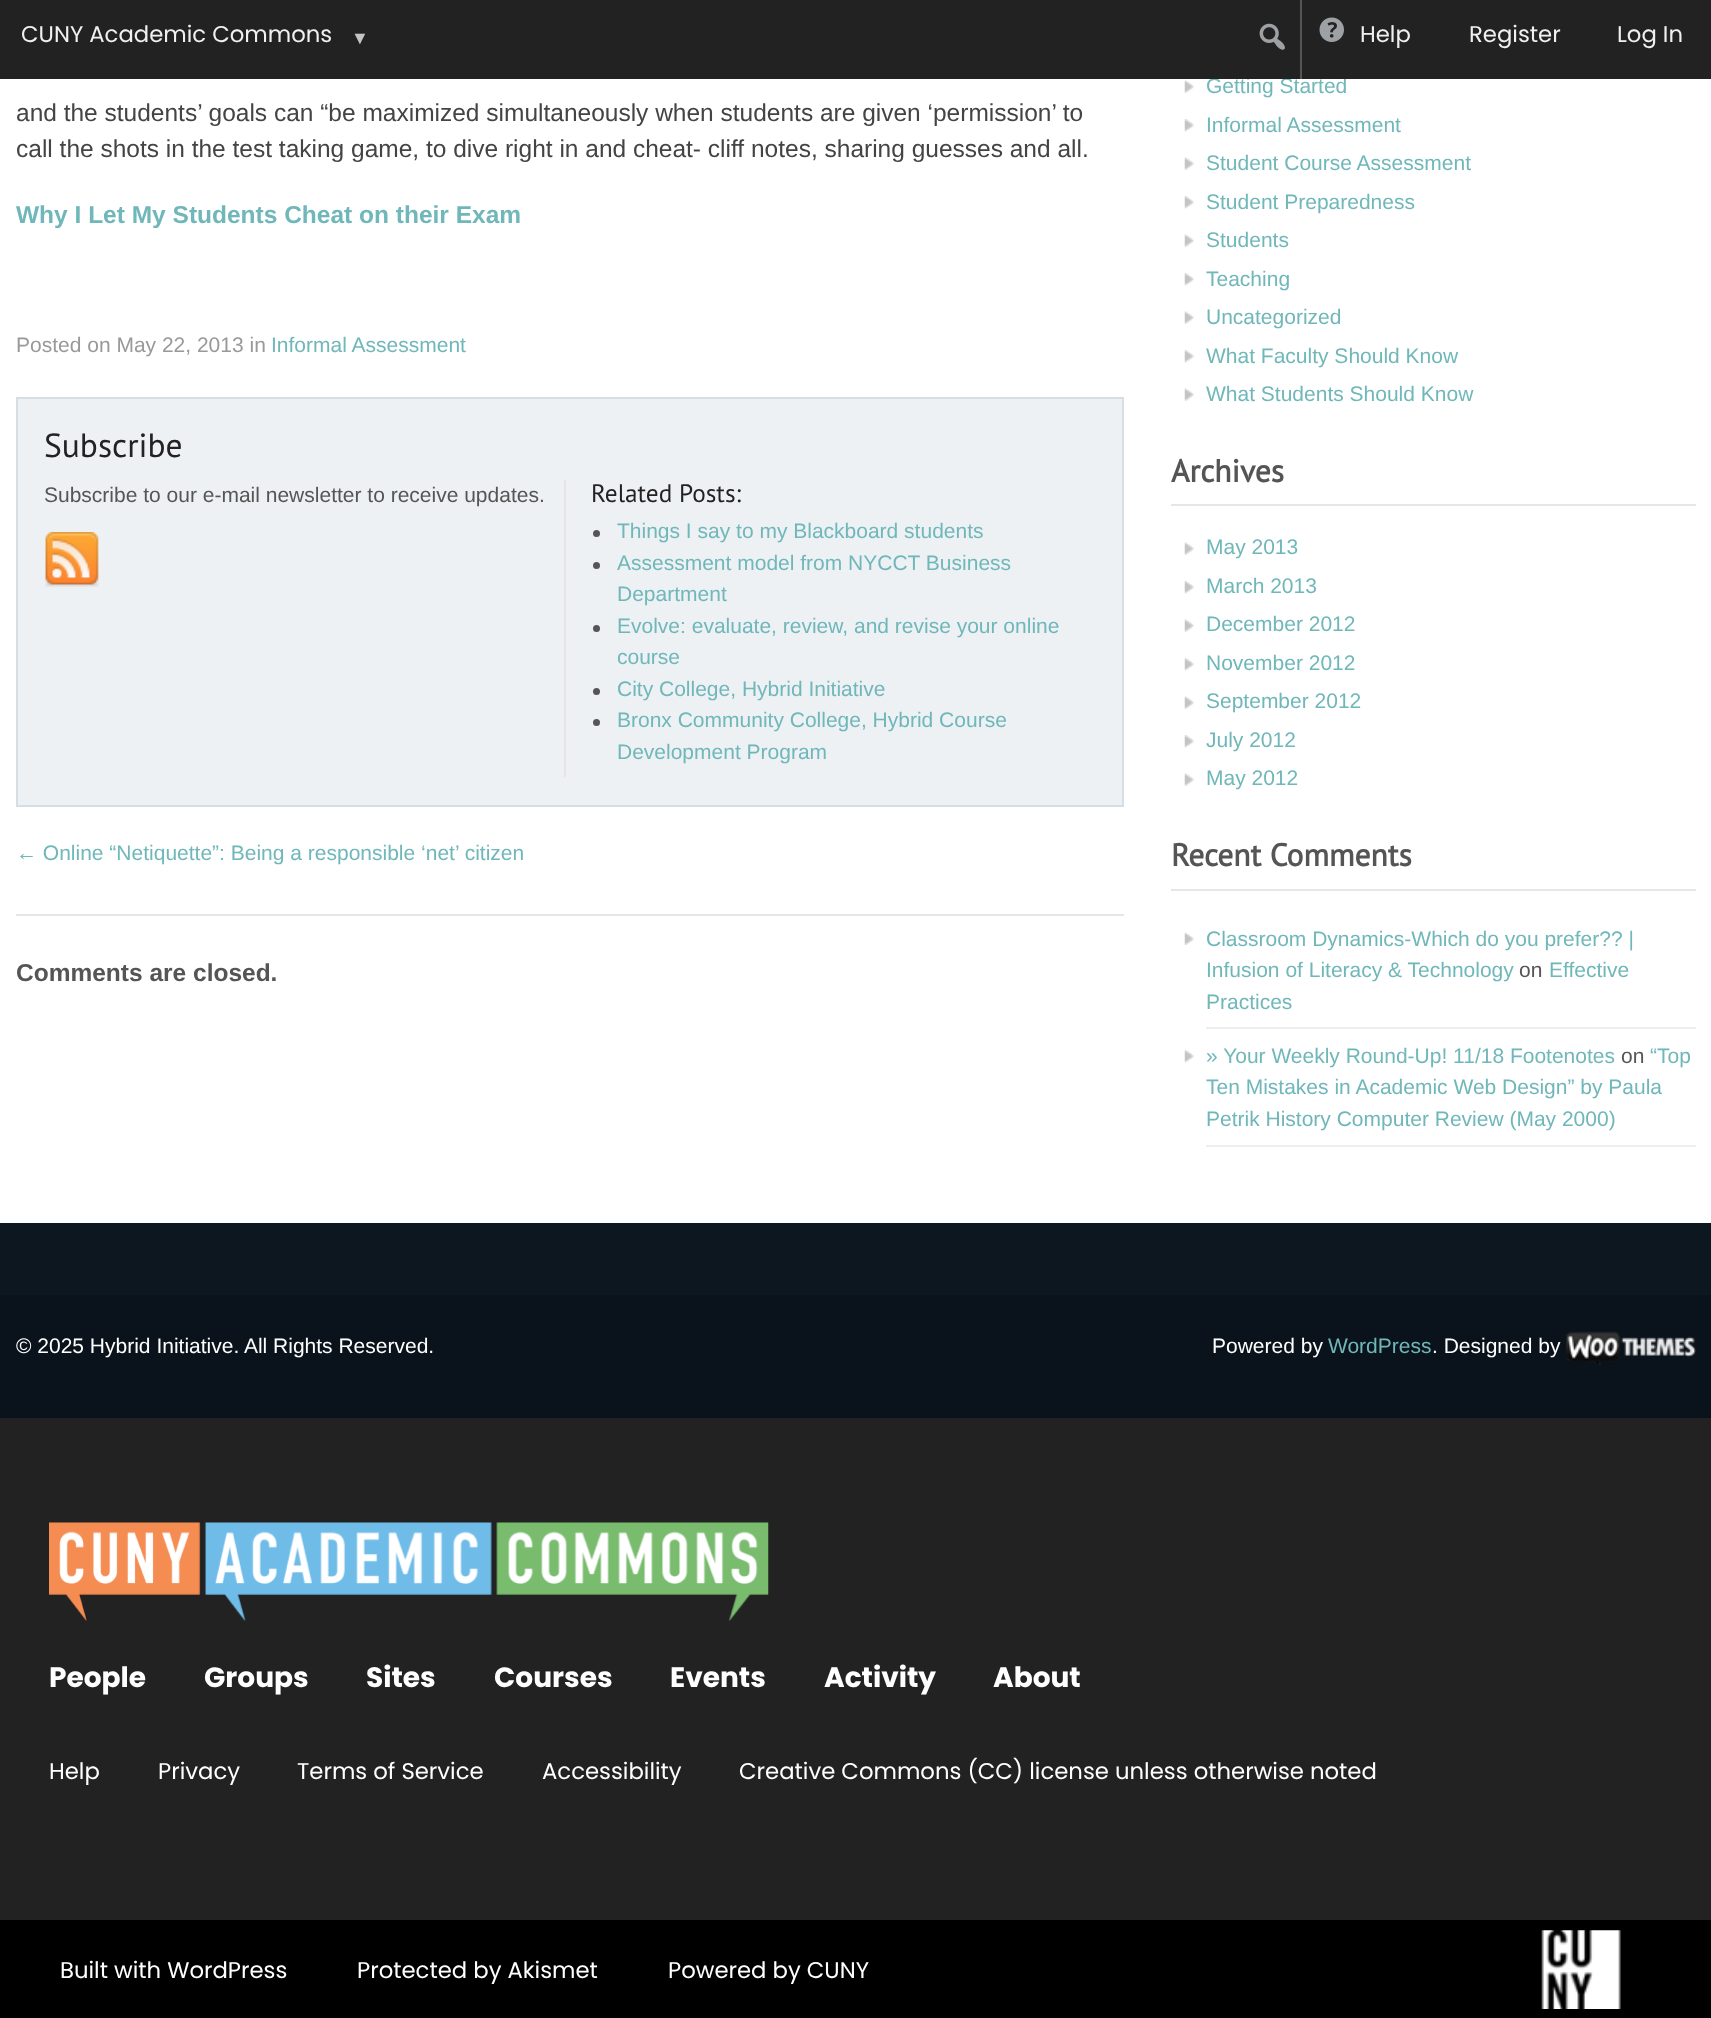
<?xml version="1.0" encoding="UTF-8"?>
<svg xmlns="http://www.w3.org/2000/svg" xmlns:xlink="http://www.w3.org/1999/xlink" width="1711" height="2018">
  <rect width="100%" height="100%" fill="#ffffff" />
  <rect x="17" y="398" width="1106" height="408" fill="#edf1f4" stroke="#d6dee5" stroke-width="2" />
  <image x="45" y="532" width="54" height="55" xlink:href="image3.png" />
  <rect x="564" y="480" width="2" height="297" fill="#e6e6e6" />
  <circle cx="596.5" cy="533.5" r="3.5" fill="#555555" />
  <circle cx="596.5" cy="565.5" r="3.5" fill="#555555" />
  <circle cx="596.5" cy="628.5" r="3.5" fill="#555555" />
  <circle cx="596.5" cy="691.5" r="3.5" fill="#555555" />
  <circle cx="596.5" cy="722.5" r="3.5" fill="#555555" />
  <rect x="16" y="914" width="1108" height="2" fill="#e6e6e6" />
  <image x="1184" y="80" width="10" height="13" xlink:href="image4.png" />
  <image x="1184" y="119" width="10" height="13" xlink:href="image5.png" />
  <image x="1184" y="157" width="10" height="13" xlink:href="image4.png" />
  <image x="1184" y="196" width="10" height="13" xlink:href="image5.png" />
  <image x="1184" y="234" width="10" height="13" xlink:href="image4.png" />
  <image x="1184" y="273" width="10" height="13" xlink:href="image5.png" />
  <image x="1184" y="311" width="10" height="13" xlink:href="image4.png" />
  <image x="1184" y="350" width="10" height="13" xlink:href="image5.png" />
  <image x="1184" y="388" width="10" height="13" xlink:href="image4.png" />
  <rect x="1171" y="504" width="525" height="2" fill="#e6e6e6" />
  <image x="1184" y="542" width="10" height="13" xlink:href="image4.png" />
  <image x="1184" y="581" width="10" height="13" xlink:href="image5.png" />
  <image x="1184" y="619" width="10" height="13" xlink:href="image4.png" />
  <image x="1184" y="658" width="10" height="13" xlink:href="image5.png" />
  <image x="1184" y="696" width="10" height="13" xlink:href="image4.png" />
  <image x="1184" y="735" width="10" height="13" xlink:href="image5.png" />
  <image x="1184" y="773" width="10" height="13" xlink:href="image4.png" />
  <rect x="1171" y="889" width="525" height="2" fill="#e6e6e6" />
  <rect x="1206" y="1027" width="490" height="2" fill="#eeeeee" />
  <image x="1184" y="932" width="10" height="13" xlink:href="image6.png" />
  <rect x="1206" y="1145" width="490" height="2" fill="#eeeeee" />
  <image x="1184" y="1050" width="10" height="13" xlink:href="image5.png" />
  <rect y="1223" width="1711" height="72" fill="#0d1720" />
  <rect y="1295" width="1711" height="123" fill="#0a131b" />
  <image x="1566" y="1331" width="130" height="34" xlink:href="image7.png" />
  <rect y="1418" width="1711" height="502" fill="#222222" />
  <image x="49" y="1522" width="720" height="99" xlink:href="image8.png" />
  <rect y="1920" width="1711" height="98" fill="#000000" />
  <image x="1541" y="1930" width="80" height="79" xlink:href="image9.png" />
  <text x="16" y="121" style="font-family: Liberation Sans; font-size: 24.5px; fill: #444444">and the students’ goals can “be maximized simultaneously when students are given ‘permission’ to</text>
  <text x="16" y="157" style="font-family: Liberation Sans; font-size: 24.5px; fill: #444444">call the shots in the test taking game, to dive right in and cheat- cliff notes, sharing guesses and all.</text>
  <text x="16" y="223" style="font-family: Liberation Sans; font-size: 24.5px; font-weight: bold; fill: #70b7ba">Why I Let My Students Cheat on their Exam</text>
  <text x="16" y="352" style="font-family: Liberation Sans; font-size: 21px; fill: #999999">Posted on May 22, 2013 in</text>
  <text x="271" y="352" style="font-family: Liberation Sans; font-size: 21px; fill: #70b7ba">Informal Assessment</text>
  <text x="44" y="457" style="font-family: PT Sans; font-size: 33.5px; fill: #222222">Subscribe</text>
  <text x="44" y="502" style="font-family: Liberation Sans; font-size: 21px; fill: #555555">Subscribe to our e-mail newsletter to receive updates.</text>
  <text x="591" y="502" style="font-family: PT Sans; font-size: 25.25px; fill: #222222">Related Posts:</text>
  <text x="617" y="538" style="font-family: Liberation Sans; font-size: 21px; fill: #70b7ba">Things I say to my Blackboard students</text>
  <text x="617" y="570" style="font-family: Liberation Sans; font-size: 21px; fill: #70b7ba">Assessment model from NYCCT Business</text>
  <text x="617" y="601" style="font-family: Liberation Sans; font-size: 21px; fill: #70b7ba">Department</text>
  <text x="617" y="633" style="font-family: Liberation Sans; font-size: 21px; fill: #70b7ba">Evolve: evaluate, review, and revise your online</text>
  <text x="617" y="664" style="font-family: Liberation Sans; font-size: 21px; fill: #70b7ba">course</text>
  <text x="617" y="696" style="font-family: Liberation Sans; font-size: 21px; fill: #70b7ba">City College, Hybrid Initiative</text>
  <text x="617" y="727" style="font-family: Liberation Sans; font-size: 21px; fill: #70b7ba">Bronx Community College, Hybrid Course</text>
  <text x="617" y="759" style="font-family: Liberation Sans; font-size: 21px; fill: #70b7ba">Development Program</text>
  <text x="16" y="860" style="font-family: Liberation Sans; font-size: 21px; fill: #70b7ba">← Online “Netiquette”: Being a responsible ‘net’ citizen</text>
  <text x="16" y="981" style="font-family: Liberation Sans; font-size: 24.5px; font-weight: bold; fill: #555555">Comments are closed.</text>
  <text x="1206" y="93" style="font-family: Liberation Sans; font-size: 21px; fill: #70b7ba">Getting Started</text>
  <rect width="1711" height="79" fill="#222222" />
  <image x="1259" y="23" width="26" height="27" xlink:href="image1.png" />
  <image x="1319" y="17" width="25" height="25" xlink:href="image2.png" />
  <text x="1360" y="42" style="font-family: Poppins; font-size: 22.75px; fill: #f0f0f1">Help</text>
  <rect x="1300" width="2" height="79" fill="#555555" />
  <text x="1469" y="42" style="font-family: Poppins; font-size: 22.75px; fill: #f0f0f1">Register</text>
  <text x="1617" y="42" style="font-family: Poppins; font-size: 22.75px; fill: #f0f0f1">Log In</text>
  <text x="351" y="44" style="font-family: Liberation Sans; font-size: 18px; fill: #c3c4c7">▼</text>
  <text x="21" y="42" style="font-family: Poppins; font-size: 22.75px; fill: #f0f0f1">CUNY Academic Commons</text>
  <text x="1206" y="132" style="font-family: Liberation Sans; font-size: 21px; fill: #70b7ba">Informal Assessment</text>
  <text x="1206" y="170" style="font-family: Liberation Sans; font-size: 21px; fill: #70b7ba">Student Course Assessment</text>
  <text x="1206" y="209" style="font-family: Liberation Sans; font-size: 21px; fill: #70b7ba">Student Preparedness</text>
  <text x="1206" y="247" style="font-family: Liberation Sans; font-size: 21px; fill: #70b7ba">Students</text>
  <text x="1206" y="286" style="font-family: Liberation Sans; font-size: 21px; fill: #70b7ba">Teaching</text>
  <text x="1206" y="324" style="font-family: Liberation Sans; font-size: 21px; fill: #70b7ba">Uncategorized</text>
  <text x="1206" y="363" style="font-family: Liberation Sans; font-size: 21px; fill: #70b7ba">What Faculty Should Know</text>
  <text x="1206" y="401" style="font-family: Liberation Sans; font-size: 21px; fill: #70b7ba">What Students Should Know</text>
  <text x="1171" y="482" style="font-family: PT Sans; font-size: 31.5px; font-weight: bold; fill: #555555">Archives</text>
  <text x="1206" y="554" style="font-family: Liberation Sans; font-size: 21px; fill: #70b7ba">May 2013</text>
  <text x="1206" y="593" style="font-family: Liberation Sans; font-size: 21px; fill: #70b7ba">March 2013</text>
  <text x="1206" y="631" style="font-family: Liberation Sans; font-size: 21px; fill: #70b7ba">December 2012</text>
  <text x="1206" y="670" style="font-family: Liberation Sans; font-size: 21px; fill: #70b7ba">November 2012</text>
  <text x="1206" y="708" style="font-family: Liberation Sans; font-size: 21px; fill: #70b7ba">September 2012</text>
  <text x="1206" y="747" style="font-family: Liberation Sans; font-size: 21px; fill: #70b7ba">July 2012</text>
  <text x="1206" y="785" style="font-family: Liberation Sans; font-size: 21px; fill: #70b7ba">May 2012</text>
  <text x="1171" y="866" style="font-family: PT Sans; font-size: 31.5px; font-weight: bold; fill: #555555">Recent Comments</text>
  <text x="1206" y="946" style="font-family: Liberation Sans; font-size: 21px; fill: #70b7ba">Classroom Dynamics-Which do you prefer?? |</text>
  <text x="1206" y="977" style="font-family: Liberation Sans; font-size: 21px; fill: #70b7ba">Infusion of Literacy &amp; Technology</text>
  <text x="1519" y="977" style="font-family: Liberation Sans; font-size: 21px; fill: #555555">on</text>
  <text x="1549" y="977" style="font-family: Liberation Sans; font-size: 21px; fill: #70b7ba">Effective</text>
  <text x="1206" y="1009" style="font-family: Liberation Sans; font-size: 21px; fill: #70b7ba">Practices</text>
  <text x="1206" y="1063" style="font-family: Liberation Sans; font-size: 21px; fill: #70b7ba">» Your Weekly Round-Up! 11/18 Footenotes</text>
  <text x="1621" y="1063" style="font-family: Liberation Sans; font-size: 21px; fill: #555555">on</text>
  <text x="1650" y="1063" style="font-family: Liberation Sans; font-size: 21px; fill: #70b7ba">“Top</text>
  <text x="1206" y="1094" style="font-family: Liberation Sans; font-size: 21px; fill: #70b7ba">Ten Mistakes in Academic Web Design” by Paula</text>
  <text x="1206" y="1126" style="font-family: Liberation Sans; font-size: 21px; fill: #70b7ba">Petrik History Computer Review (May 2000)</text>
  <text x="16" y="1353" style="font-family: Liberation Sans; font-size: 21px; fill: #ffffff">© 2025 Hybrid Initiative. All Rights Reserved.</text>
  <text x="1212" y="1353" style="font-family: Liberation Sans; font-size: 21px; fill: #ffffff">Powered by</text>
  <text x="1328" y="1353" style="font-family: Liberation Sans; font-size: 21px; fill: #70b7ba">WordPress</text>
  <text x="1432" y="1353" style="font-family: Liberation Sans; font-size: 21px; fill: #ffffff">. Designed by</text>
  <text x="49" y="1687" style="font-family: Poppins; font-size: 28px; font-weight: bold; fill: #ffffff">People</text>
  <text x="204" y="1687" style="font-family: Poppins; font-size: 28px; font-weight: bold; fill: #ffffff">Groups</text>
  <text x="366" y="1687" style="font-family: Poppins; font-size: 28px; font-weight: bold; fill: #ffffff">Sites</text>
  <text x="494" y="1687" style="font-family: Poppins; font-size: 28px; font-weight: bold; fill: #ffffff">Courses</text>
  <text x="670" y="1687" style="font-family: Poppins; font-size: 28px; font-weight: bold; fill: #ffffff">Events</text>
  <text x="824" y="1687" style="font-family: Poppins; font-size: 28px; font-weight: bold; fill: #ffffff">Activity</text>
  <text x="993" y="1687" style="font-family: Poppins; font-size: 28px; font-weight: bold; fill: #ffffff">About</text>
  <text x="49" y="1779" style="font-family: Poppins; font-size: 22.75px; fill: #ffffff">Help</text>
  <text x="158" y="1779" style="font-family: Poppins; font-size: 22.75px; fill: #ffffff">Privacy</text>
  <text x="297" y="1779" style="font-family: Poppins; font-size: 22.75px; fill: #ffffff">Terms of Service</text>
  <text x="542" y="1779" style="font-family: Poppins; font-size: 22.75px; fill: #ffffff">Accessibility</text>
  <text x="739" y="1779" style="font-family: Poppins; font-size: 22.75px; fill: #ffffff">Creative Commons (CC) license unless otherwise noted</text>
  <text x="60" y="1978" style="font-family: Poppins; font-size: 22.75px; fill: #ffffff">Built with WordPress</text>
  <text x="357" y="1978" style="font-family: Poppins; font-size: 22.75px; fill: #ffffff">Protected by Akismet</text>
  <text x="668" y="1978" style="font-family: Poppins; font-size: 22.75px; fill: #ffffff">Powered by CUNY</text>
</svg>
